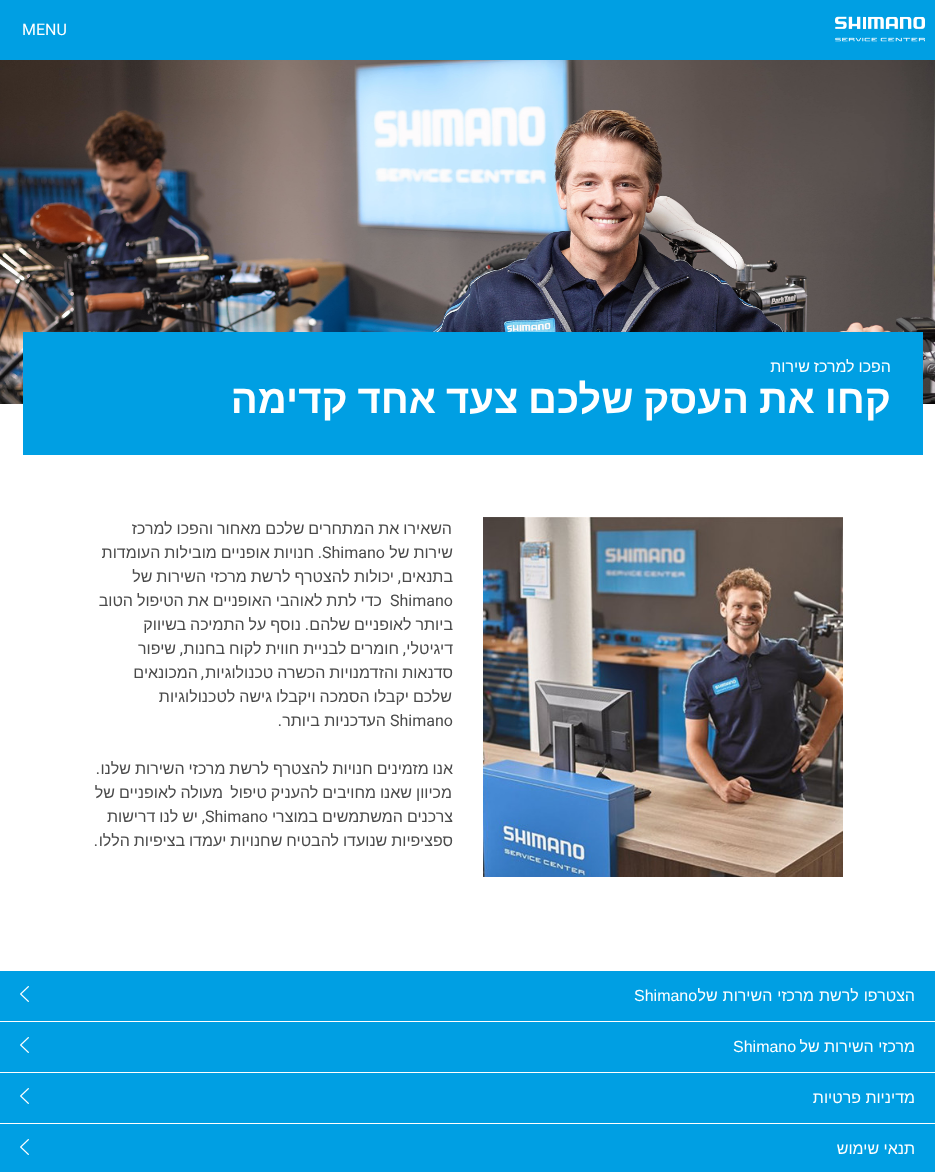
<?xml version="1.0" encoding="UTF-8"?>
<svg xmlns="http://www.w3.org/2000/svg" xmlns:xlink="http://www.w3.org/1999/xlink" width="935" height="1172">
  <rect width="100%" height="100%" fill="#ffffff" />
  <rect width="935" height="60" fill="#009fe3" />
  <image x="835" y="16" width="90" height="26" xlink:href="image1.png" />
  <image x="0" y="60" width="935" height="344" xlink:href="image2.png" />
  <rect x="23" y="332" width="900" height="123" fill="#009fe3" />
  <image x="483" y="517" width="360" height="360" xlink:href="image3.png" />
  <rect y="971" width="935" height="201" fill="#009fe3" />
  <rect y="1021" width="935" height="1" fill="#ffffff" />
  <image x="20" y="986" width="9" height="16" xlink:href="image4.png" />
  <rect y="1072" width="935" height="1" fill="#ffffff" />
  <image x="20" y="1037" width="9" height="16" xlink:href="image4.png" />
  <rect y="1123" width="935" height="1" fill="#ffffff" />
  <image x="20" y="1088" width="9" height="16" xlink:href="image4.png" />
  <image x="20" y="1139" width="9" height="16" xlink:href="image4.png" />
  <text x="22" y="35" style="font-family: Roboto; font-size: 16px; fill: #ffffff">MENU</text>
  <text x="891" y="372" word-spacing="-0.5" style="font-family: Liberation Sans; font-size: 16px; direction: rtl; fill: #ffffff">הפכו למרכז שירות</text>
  <text x="891" y="413" word-spacing="-1.25" style="font-family: Liberation Sans; font-size: 40px; font-weight: bold; direction: rtl; fill: #ffffff">קחו את העסק שלכם צעד אחד קדימה</text>
  <text x="452" y="534" word-spacing="-0.5" style="font-family: Liberation Sans; font-size: 16px; direction: rtl; fill: #4a4a4a">השאירו את המתחרים שלכם מאחור והפכו למרכז</text>
  <text x="453" y="558" word-spacing="-0.5" style="font-family: Liberation Sans; font-size: 16px; direction: rtl; fill: #4a4a4a">שירות של</text>
  <text x="322" y="558" style="font-family: Roboto; font-size: 16px; fill: #4a4a4a">Shimano</text>
  <text x="322" y="558" style="font-family: Roboto; font-size: 16px; direction: rtl; fill: #4a4a4a">.</text>
  <text x="314" y="558" word-spacing="-0.5" style="font-family: Liberation Sans; font-size: 16px; direction: rtl; fill: #4a4a4a">חנויות אופניים מובילות העומדות</text>
  <text x="453" y="582" style="font-family: Liberation Sans; font-size: 16px; direction: rtl; fill: #4a4a4a">בתנאים</text>
  <text x="394" y="582" word-spacing="-0.5" style="font-family: Liberation Sans; font-size: 16px; direction: rtl; fill: #4a4a4a">יכולות להצטרף לרשת מרכזי השירות של</text>
  <text x="401" y="582" style="font-family: Roboto; font-size: 16px; direction: rtl; fill: #4a4a4a">,</text>
  <text x="390" y="606" style="font-family: Roboto; font-size: 16px; fill: #4a4a4a">Shimano</text>
  <text x="382" y="606" word-spacing="-0.5" style="font-family: Liberation Sans; font-size: 16px; direction: rtl; fill: #4a4a4a">כדי לתת לאוהבי האופניים את הטיפול הטוב</text>
  <text x="453" y="630" word-spacing="-0.5" style="font-family: Liberation Sans; font-size: 16px; direction: rtl; fill: #4a4a4a">ביותר לאופניים שלהם</text>
  <text x="309" y="630" style="font-family: Roboto; font-size: 16px; direction: rtl; fill: #4a4a4a">.</text>
  <text x="301" y="630" word-spacing="-0.5" style="font-family: Liberation Sans; font-size: 16px; direction: rtl; fill: #4a4a4a">נוסף על התמיכה בשיווק</text>
  <text x="453" y="654" style="font-family: Liberation Sans; font-size: 16px; direction: rtl; fill: #4a4a4a">דיגיטלי</text>
  <text x="406" y="654" style="font-family: Roboto; font-size: 16px; direction: rtl; fill: #4a4a4a">,</text>
  <text x="399" y="654" word-spacing="-0.5" style="font-family: Liberation Sans; font-size: 16px; direction: rtl; fill: #4a4a4a">חומרים לבניית חווית לקוח בחנות</text>
  <text x="183" y="654" style="font-family: Roboto; font-size: 16px; direction: rtl; fill: #4a4a4a">,</text>
  <text x="176" y="654" style="font-family: Liberation Sans; font-size: 16px; direction: rtl; fill: #4a4a4a">שיפור</text>
  <text x="453" y="678" word-spacing="-0.5" style="font-family: Liberation Sans; font-size: 16px; direction: rtl; fill: #4a4a4a">סדנאות והזדמנויות הכשרה טכנולוגיות</text>
  <text x="198" y="678" style="font-family: Liberation Sans; font-size: 16px; direction: rtl; fill: #4a4a4a">המכונאים</text>
  <text x="204" y="678" style="font-family: Roboto; font-size: 16px; direction: rtl; fill: #4a4a4a">,</text>
  <text x="452" y="702" word-spacing="-0.5" style="font-family: Liberation Sans; font-size: 16px; direction: rtl; fill: #4a4a4a">שלכם יקבלו הסמכה ויקבלו גישה לטכנולוגיות</text>
  <text x="390" y="726" style="font-family: Roboto; font-size: 16px; fill: #4a4a4a">Shimano</text>
  <text x="386" y="726" style="font-family: Liberation Sans; font-size: 16px; direction: rtl; fill: #4a4a4a">העדכניות ביותר</text>
  <text x="282" y="726" style="font-family: Roboto; font-size: 16px; direction: rtl; fill: #4a4a4a">.</text>
  <text x="453" y="774" word-spacing="-0.5" style="font-family: Liberation Sans; font-size: 16px; direction: rtl; fill: #4a4a4a">אנו מזמינים חנויות להצטרף לרשת מרכזי השירות שלנו</text>
  <text x="100" y="774" style="font-family: Roboto; font-size: 16px; direction: rtl; fill: #4a4a4a">.</text>
  <text x="452" y="798" word-spacing="-0.5" style="font-family: Liberation Sans; font-size: 16px; direction: rtl; fill: #4a4a4a">מכיוון שאנו מחויבים להעניק טיפול</text>
  <text x="223" y="798" word-spacing="-0.5" style="font-family: Liberation Sans; font-size: 16px; direction: rtl; fill: #4a4a4a">מעולה לאופניים של</text>
  <text x="453" y="822" word-spacing="-0.5" style="font-family: Liberation Sans; font-size: 16px; direction: rtl; fill: #4a4a4a">צרכנים המשתמשים במוצרי</text>
  <text x="205" y="822" style="font-family: Roboto; font-size: 16px; fill: #4a4a4a">Shimano</text>
  <text x="205" y="822" style="font-family: Roboto; font-size: 16px; direction: rtl; fill: #4a4a4a">,</text>
  <text x="198" y="822" word-spacing="-0.5" style="font-family: Liberation Sans; font-size: 16px; direction: rtl; fill: #4a4a4a">יש לנו דרישות</text>
  <text x="453" y="846" word-spacing="-0.5" style="font-family: Liberation Sans; font-size: 16px; direction: rtl; fill: #4a4a4a">ספציפיות שנועדו להבטיח שחנויות יעמדו בציפיות הללו</text>
  <text x="98" y="846" style="font-family: Roboto; font-size: 16px; direction: rtl; fill: #4a4a4a">.</text>
  <text x="915" y="1001" word-spacing="0.5" style="font-family: Liberation Sans; font-size: 16px; direction: rtl; fill: #ffffff">הצטרפו לרשת מרכזי השירות של</text>
  <text x="634" y="1001" style="font-family: Liberation Sans; font-size: 16px; fill: #ffffff">Shimano</text>
  <text x="915" y="1052" style="font-family: Liberation Sans; font-size: 16px; direction: rtl; fill: #ffffff">מרכזי השירות של</text>
  <text x="733" y="1052" style="font-family: Liberation Sans; font-size: 16px; fill: #ffffff">Shimano</text>
  <text x="915" y="1103" style="font-family: Liberation Sans; font-size: 16px; direction: rtl; fill: #ffffff">מדיניות פרטיות</text>
  <text x="915" y="1154" style="font-family: Liberation Sans; font-size: 16px; direction: rtl; fill: #ffffff">תנאי שימוש</text>
</svg>
